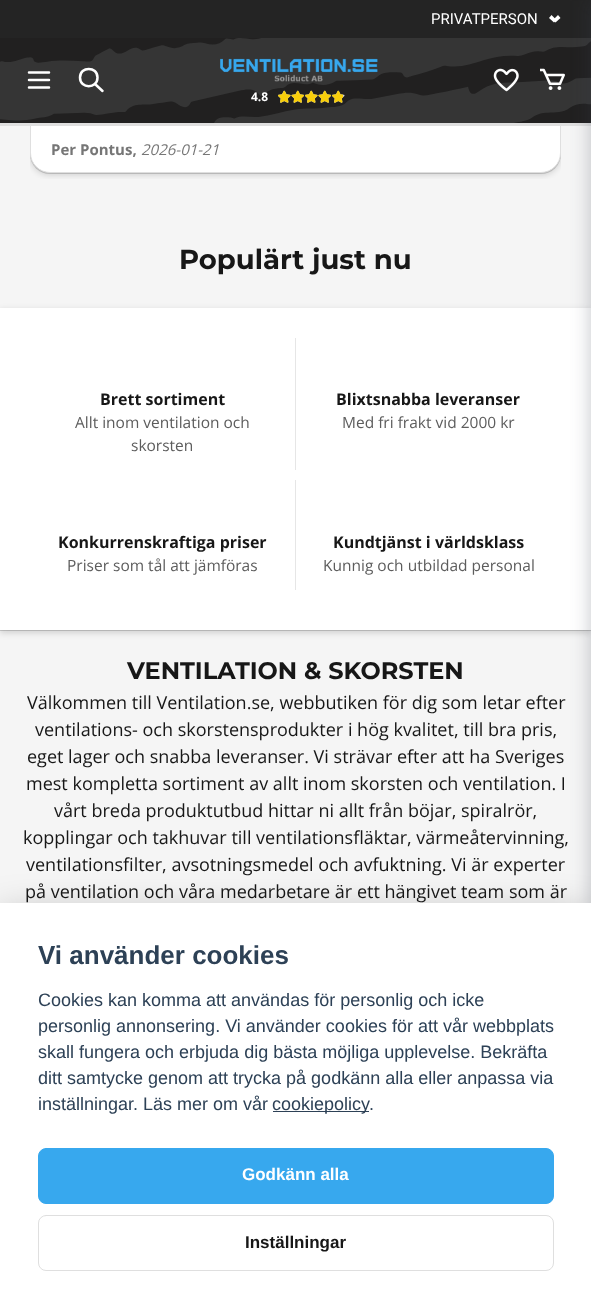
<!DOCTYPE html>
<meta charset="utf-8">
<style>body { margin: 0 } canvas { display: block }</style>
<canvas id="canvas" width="591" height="1308"></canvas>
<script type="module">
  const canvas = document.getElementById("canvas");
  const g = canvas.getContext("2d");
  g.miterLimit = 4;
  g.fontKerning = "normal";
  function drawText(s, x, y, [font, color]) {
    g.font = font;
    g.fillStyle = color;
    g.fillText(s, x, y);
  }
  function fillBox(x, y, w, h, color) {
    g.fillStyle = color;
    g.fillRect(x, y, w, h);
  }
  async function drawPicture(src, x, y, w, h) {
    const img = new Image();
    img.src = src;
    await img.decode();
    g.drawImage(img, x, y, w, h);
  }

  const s1 = ["15px Roboto", "#FFFFFF"];
  const s2 = ["bold 12px Open Sans", "#FFFFFF"];
  const s3 = ["bold 15px Open Sans", "#767676"];
  const s4 = ["italic 15px Open Sans", "#767676"];
  const s5 = ["bold 27.5px Montserrat", "#171717"];
  const s6 = ["bold 16px Open Sans", "#171717"];
  const s7 = ["15.5px Open Sans", "#5D5D5D"];
  const s8 = ["bold 24px Montserrat", "#171717"];
  const s9 = ["18px Open Sans", "#171717"];
  const s10 = ["bold 26px Liberation Sans", "#2D4156"];
  const s11 = ["18px Liberation Sans", "#2D4156"];
  const s12 = ["bold 17px Liberation Sans", "#FFFFFF"];
  const s13 = ["bold 17px Liberation Sans", "#171717"];

  fillBox(0, 0, 591, 1308, "#F5F5F5");
  g.save();
  g.beginPath();
  g.roundRect(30, 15, 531, 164, 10);
  g.clip();
  g.fillStyle = "rgba(0, 0, 0, 0.15)";
  g.filter = "blur(3px)";
  g.beginPath();
  g.roundRect(30, 19, 531, 156, 20);
  g.fill();
  g.filter = "none";
  g.restore();
  g.fillStyle = "rgba(0, 0, 0, 0.16)";
  g.filter = "blur(0.5px)";
  g.beginPath();
  g.roundRect(30, 18, 531, 156, 20);
  g.fill();
  g.filter = "none";
  g.fillStyle = "#FFFFFF";
  g.beginPath();
  g.roundRect(30.5, 16.5, 530, 156, 19.5);
  g.fill();
  g.strokeStyle = "#DFDFDF";
  g.stroke();
  await drawPicture("pic1.png", 0, 38, 591, 85);
  fillBox(0, 123, 591, 3, "#DFDFDF");
  fillBox(0, 0, 591, 38, "#242424");
  drawText("PRIVATPERSON", 431, 24, s1);
  g.beginPath();
  g.moveTo(553, 20);
  g.lineTo(558, 15);
  g.lineTo(560.5, 18);
  g.lineTo(555.5, 22.5);
  g.closePath();
  g.fill();
  g.beginPath();
  g.moveTo(549, 18);
  g.lineTo(551.5, 15);
  g.lineTo(556.5, 20);
  g.lineTo(554, 22.5);
  g.closePath();
  g.fill();
  g.beginPath();
  g.moveTo(29, 72.5);
  g.lineTo(49, 72.5);
  g.moveTo(29, 80);
  g.lineTo(49, 80);
  g.moveTo(29, 87.5);
  g.lineTo(49, 87.5);
  g.strokeStyle = "#FFFFFF";
  g.lineWidth = 2.5;
  g.lineCap = "round";
  g.lineJoin = "round";
  g.stroke();
  g.beginPath();
  g.moveTo(102.5, 91);
  g.lineTo(95, 84);
  g.moveTo(97.5, 77.5);
  g.bezierCurveTo(97.5, 89, 80, 89, 80, 77.5);
  g.bezierCurveTo(80, 66, 97.5, 66, 97.5, 77.5);
  g.closePath();
  g.stroke();
  await drawPicture("pic2.png", 493, 68, 26, 24);
  await drawPicture("pic3.png", 540, 68, 25, 22);
  await drawPicture("pic4.png", 220, 58, 158, 24);
  drawText("4.8", 251, 101, s2);
  await drawPicture("pic5.png", 278, 90, 67, 13);
  await drawPicture("pic6.png", 278, 90, 65, 13);
  g.fillStyle = "rgba(0, 0, 0, 0.15)";
  g.filter = "blur(3px)";
  g.beginPath();
  g.rect(0, 310, 591, 323);
  g.fill();
  g.filter = "none";
  g.fillStyle = "rgba(0, 0, 0, 0.16)";
  g.filter = "blur(0.5px)";
  g.beginPath();
  g.rect(0, 309, 591, 322);
  g.fill();
  g.filter = "none";
  fillBox(0, 308, 591, 322, "#FFFFFF");
  g.fillStyle = "rgba(60, 66, 87, 0.3)";
  g.filter = "blur(9.5px)";
  g.beginPath();
  g.rect(591, 1, 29, 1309);
  g.fill();
  g.filter = "none";
  drawText("Per Pontus,", 51, 155, s3);
  drawText("2026-01-21", 141, 155, s4);
  drawText("Populärt just nu", 179, 269, s5);
  fillBox(295, 338, 1, 132, "#E6E6E6");
  drawText("Brett sortiment", 100, 405, s6);
  drawText("Allt inom ventilation och", 75, 428, s7);
  drawText("skorsten", 131, 451, s7);
  drawText("Blixtsnabba leveranser", 336, 405, s6);
  drawText("Med fri frakt vid 2000 kr", 342, 428, s7);
  fillBox(295, 480, 1, 110, "#E6E6E6");
  drawText("Konkurrenskraftiga priser", 58, 548, s6);
  drawText("Priser som tål att jämföras", 67, 571, s7);
  drawText("Kundtjänst i världsklass", 333, 548, s6);
  drawText("Kunnig och utbildad personal", 323, 571, s7);
  drawText("VENTILATION & SKORSTEN", 127, 679, s8);
  drawText("Välkommen till Ventilation.se, webbutiken för dig som letar efter", 27, 709, s9);
  drawText("ventilations- och skorstensprodukter i hög kvalitet, till bra pris,", 35, 736, s9);
  drawText("eget lager och snabba leveranser. Vi strävar efter att ha Sveriges", 27, 763, s9);
  drawText("mest kompletta sortiment av allt inom skorsten och ventilation. I", 26, 790, s9);
  drawText("vårt breda produktutbud hittar ni allt från böjar, spiralrör,", 54, 817, s9);
  drawText("kopplingar och takhuvar till ventilationsfläktar, värmeåtervinning,", 23, 844, s9);
  drawText("ventilationsfilter, avsotningsmedel och avfuktning. Vi är experter", 26, 871, s9);
  drawText("på ventilation och våra medarbetare är ett hängivet team som är", 25, 898, s9);
  g.fillStyle = "rgba(2, 2, 3, 0.28)";
  g.filter = "blur(19px)";
  g.beginPath();
  g.rect(0, 915, 591, 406);
  g.fill();
  g.filter = "none";
  fillBox(0, 903, 591, 405, "#FFFFFF");
  drawText("Vi använder cookies", 38, 964, s10);
  drawText("Cookies kan komma att användas för personlig och icke", 38, 1006, s11);
  drawText("personlig annonsering. Vi använder cookies för att vår webbplats", 38, 1032, s11);
  drawText("skall fungera och erbjuda dig bästa möjliga upplevelse. Bekräfta", 38, 1058, s11);
  drawText("ditt samtycke genom att trycka på godkänn alla eller anpassa via", 38, 1084, s11);
  drawText("inställningar. Läs mer om vår", 38, 1110, s11);
  fillBox(273, 1111, 96, 1, "#2D4156");
  drawText("cookiepolicy", 272, 1110, s11);
  drawText(".", 369, 1110, s11);
  g.fillStyle = "#37A8EE";
  g.beginPath();
  g.roundRect(38.5, 1148.5, 515, 55, 7.5);
  g.fill();
  g.strokeStyle = "#37A8EE";
  g.lineWidth = 1;
  g.lineJoin = "miter";
  g.stroke();
  drawText("Godkänn alla", 242, 1180, s12);
  g.beginPath();
  g.roundRect(38.5, 1215.5, 515, 55, 7.5);
  g.strokeStyle = "#DFDFDF";
  g.stroke();
  drawText("Inställningar", 245, 1248, s13);
</script>
